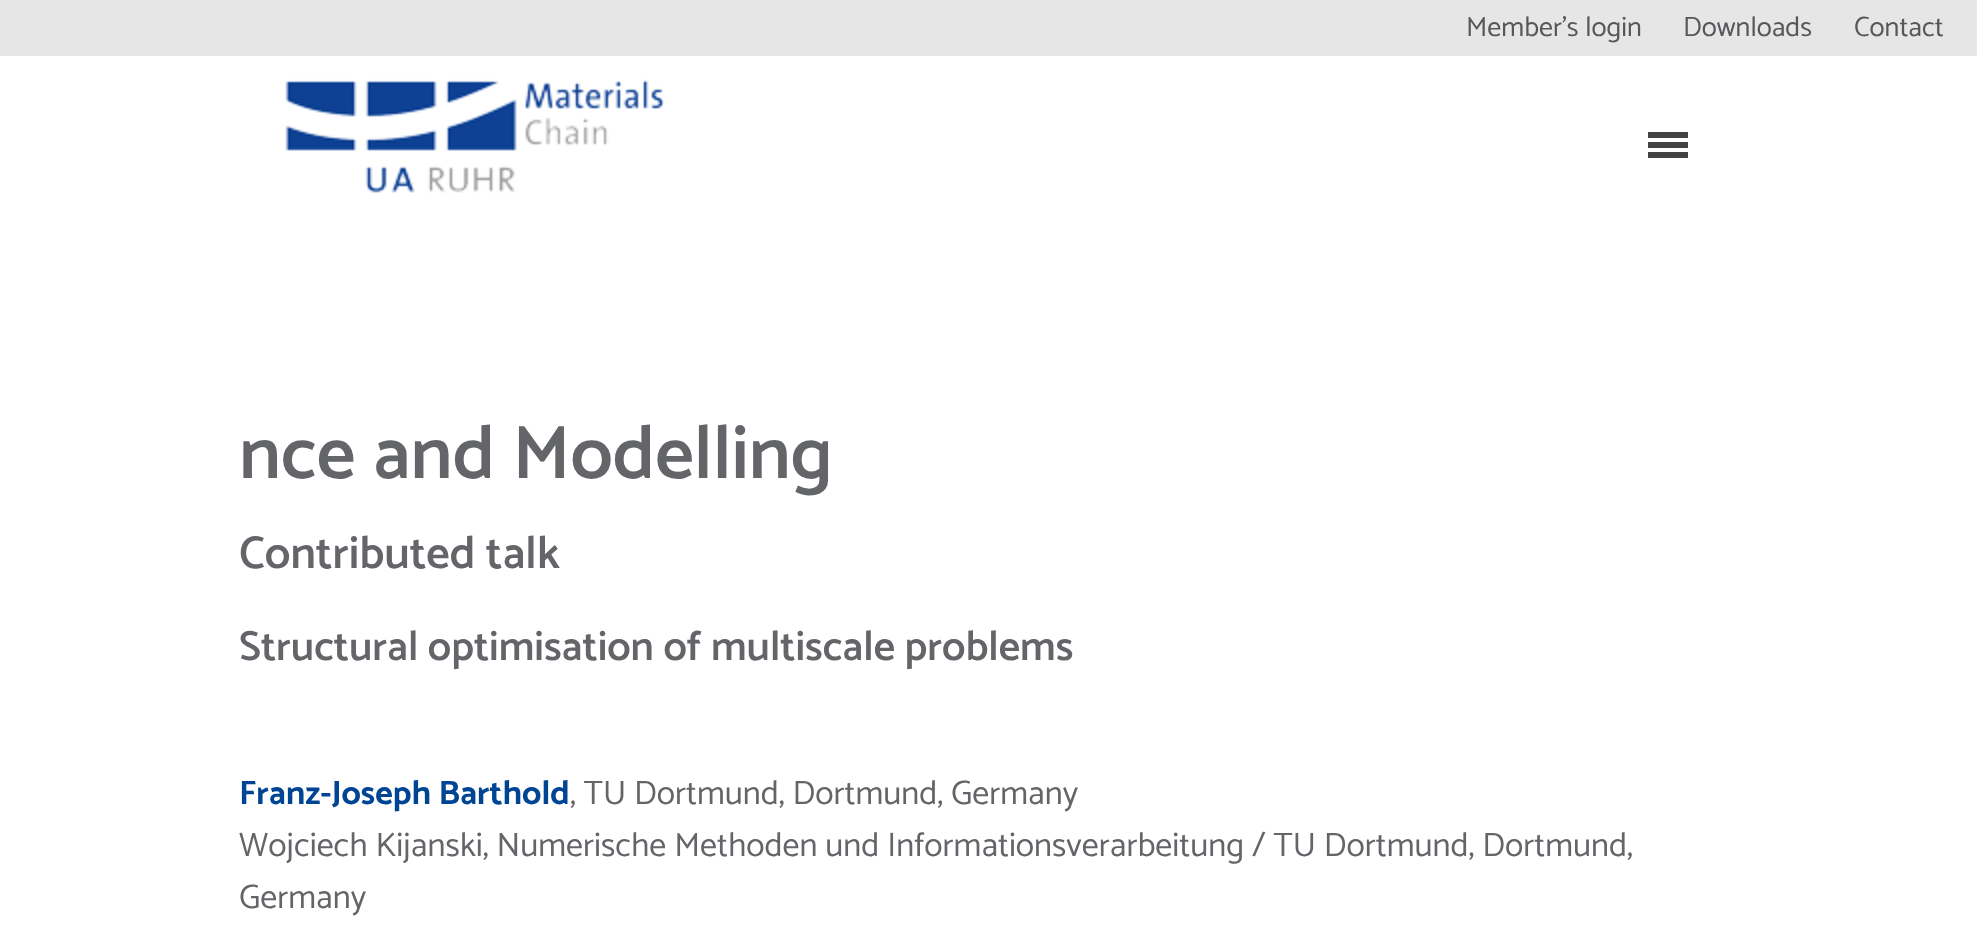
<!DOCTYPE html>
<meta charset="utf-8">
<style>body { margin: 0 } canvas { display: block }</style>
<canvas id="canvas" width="1977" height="929"></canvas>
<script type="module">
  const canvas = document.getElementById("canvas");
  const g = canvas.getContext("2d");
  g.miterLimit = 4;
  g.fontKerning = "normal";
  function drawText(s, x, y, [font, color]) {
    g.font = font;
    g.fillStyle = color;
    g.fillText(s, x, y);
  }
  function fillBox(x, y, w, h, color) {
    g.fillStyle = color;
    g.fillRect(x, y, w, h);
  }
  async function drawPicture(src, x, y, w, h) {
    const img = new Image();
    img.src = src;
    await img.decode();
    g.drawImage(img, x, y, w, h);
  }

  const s1 = ["28px Catamaran", "#56575A"];
  const s2 = ["600 76px Catamaran", "#646569"];
  const s3 = ["600 46px Catamaran", "#646569"];
  const s4 = ["600 42px Catamaran", "#646569"];
  const s5 = ["bold 34px Catamaran", "#004494"];
  const s6 = ["34px Catamaran", "#646569"];

  fillBox(0, 0, 1977, 929, "#FFFFFF");
  fillBox(0, 0, 1977, 56, "#E6E6E6");
  drawText("Member’s login", 1466, 36, s1);
  drawText("Downloads", 1683, 36, s1);
  drawText("Contact", 1854, 36, s1);
  await drawPicture("pic1.png", 285, 79, 380, 114);
  fillBox(1648, 132, 40, 6, "#424345");
  fillBox(1648, 142, 40, 6, "#424345");
  fillBox(1648, 152, 40, 6, "#424345");
  drawText("nce and Modelling", 239, 478, s2);
  drawText("Contributed talk", 239, 568, s3);
  drawText("Structural optimisation of multiscale problems", 239, 660, s4);
  drawText("Franz-Joseph Barthold", 239, 804, s5);
  drawText(", TU Dortmund, Dortmund, Germany", 570, 804, s6);
  drawText("Wojciech Kijanski, Numerische Methoden und Informationsverarbeitung / TU Dortmund, Dortmund,", 239, 856, s6);
  drawText("Germany", 239, 908, s6);
</script>
